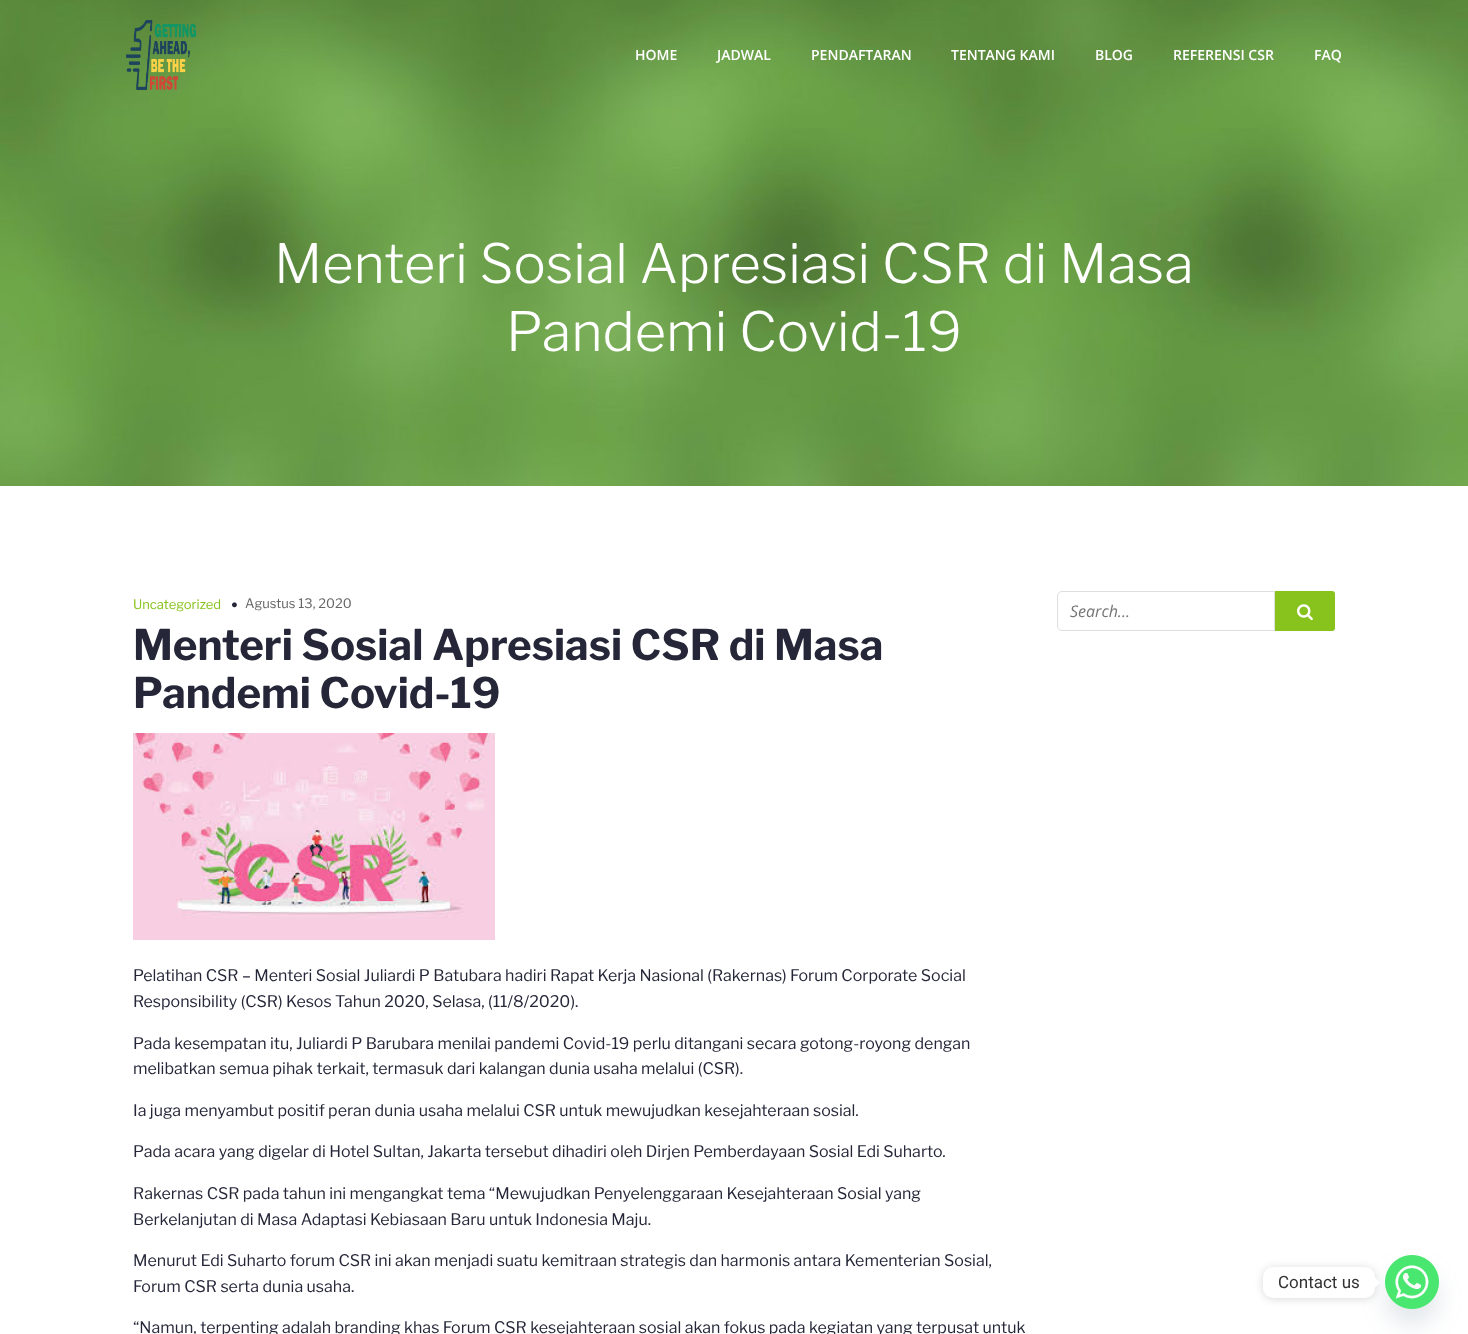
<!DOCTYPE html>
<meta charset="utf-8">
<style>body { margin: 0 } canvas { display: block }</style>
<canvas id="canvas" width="1468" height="1334"></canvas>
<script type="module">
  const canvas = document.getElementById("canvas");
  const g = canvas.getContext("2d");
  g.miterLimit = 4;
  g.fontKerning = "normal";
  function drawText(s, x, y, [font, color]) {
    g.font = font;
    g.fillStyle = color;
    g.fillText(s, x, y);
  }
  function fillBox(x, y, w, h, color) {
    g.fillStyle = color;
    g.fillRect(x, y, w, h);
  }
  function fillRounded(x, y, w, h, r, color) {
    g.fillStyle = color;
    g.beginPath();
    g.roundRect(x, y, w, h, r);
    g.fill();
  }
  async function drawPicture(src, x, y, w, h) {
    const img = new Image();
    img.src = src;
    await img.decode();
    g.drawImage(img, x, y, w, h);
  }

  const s1 = ["600 14px Open Sans", "#FFFFFF"];
  const s2 = ["300 54px Libre Franklin", "#FFFFFF"];
  const s3 = ["13px Libre Franklin", "#88C31D"];
  const s4 = ["13px Libre Franklin", "#656565"];
  const s5 = ["bold 42px Libre Franklin", "#252638"];
  const s6 = ["16px Libre Franklin", "#252638"];
  const s7 = ["italic 16px Open Sans", "#757575"];
  const s8 = ["17px Roboto", "#333333"];

  fillBox(0, 0, 1468, 1334, "#FFFFFF");
  await drawPicture("pic2.png", 0, 0, 1468, 486);
  await drawPicture("pic1.png", 126, 20, 70, 70);
  drawText("HOME", 635, 60, s1);
  drawText("JADWAL", 717, 60, s1);
  drawText("PENDAFTARAN", 811, 60, s1);
  drawText("TENTANG KAMI", 951, 60, s1);
  drawText("BLOG", 1095, 60, s1);
  drawText("REFERENSI CSR", 1173, 60, s1);
  drawText("FAQ", 1314, 60, s1);
  drawText("Menteri Sosial Apresiasi CSR di Masa", 274, 283, s2);
  drawText("Pandemi Covid-19", 506, 351, s2);
  drawText("Uncategorized", 133, 609, s3);
  await drawPicture("pic3.png", 232, 602, 5, 6);
  drawText("Agustus 13, 2020", 245, 608, s4);
  drawText("Menteri Sosial Apresiasi CSR di Masa", 133, 660, s5);
  drawText("Pandemi Covid-19", 133, 708, s5);
  await drawPicture("pic4.png", 133, 733, 362, 207);
  drawText("Pelatihan CSR – Menteri Sosial Juliardi P Batubara hadiri Rapat Kerja Nasional (Rakernas) Forum Corporate Social", 133, 981, s6);
  drawText("Responsibility (CSR) Kesos Tahun 2020, Selasa, (11/8/2020).", 133, 1007, s6);
  drawText("Pada kesempatan itu, Juliardi P Barubara menilai pandemi Covid-19 perlu ditangani secara gotong-royong dengan", 133, 1049, s6);
  drawText("melibatkan semua pihak terkait, termasuk dari kalangan dunia usaha melalui (CSR).", 133, 1074, s6);
  drawText("Ia juga menyambut positif peran dunia usaha melalui CSR untuk mewujudkan kesejahteraan sosial.", 133, 1116, s6);
  drawText("Pada acara yang digelar di Hotel Sultan, Jakarta tersebut dihadiri oleh Dirjen Pemberdayaan Sosial Edi Suharto.", 133, 1157, s6);
  drawText("Rakernas CSR pada tahun ini mengangkat tema “Mewujudkan Penyelenggaraan Kesejahteraan Sosial yang", 133, 1199, s6);
  drawText("Berkelanjutan di Masa Adaptasi Kebiasaan Baru untuk Indonesia Maju.", 133, 1225, s6);
  drawText("Menurut Edi Suharto forum CSR ini akan menjadi suatu kemitraan strategis dan harmonis antara Kementerian Sosial,", 133, 1266, s6);
  drawText("Forum CSR serta dunia usaha.", 133, 1292, s6);
  drawText("“Namun, terpenting adalah branding khas Forum CSR kesejahteraan sosial akan fokus pada kegiatan yang terpusat untuk", 133, 1333, s6);
  g.beginPath();
  g.roundRect(1057.5, 591.5, 217, 39, [4.5, 0, 0, 4.5]);
  g.strokeStyle = "#DEDEDE";
  g.stroke();
  drawText("Search...", 1070, 617, s7);
  g.fillStyle = "#88C31D";
  g.beginPath();
  g.roundRect(1275, 591, 60, 40, [0, 3, 3, 0]);
  g.fill();
  await drawPicture("pic5.png", 1297, 604, 16, 17);
  g.fillStyle = "rgba(73, 104, 126, 0.16)";
  g.filter = "blur(12px)";
  g.beginPath();
  g.roundRect(1385, 1271, 54, 54, 27);
  g.fill();
  g.filter = "none";
  await drawPicture("pic6.png", 1385, 1255, 54, 54);
  g.fillStyle = "rgba(0, 0, 0, 0.15)";
  g.filter = "blur(4px)";
  g.beginPath();
  g.roundRect(1263, 1268, 112, 31, 10);
  g.fill();
  g.filter = "none";
  fillRounded(1263, 1267, 112, 31, 10, "#FFFFFF");
  drawText("Contact us", 1278, 1288, s8);
  g.fillStyle = "#FFFFFF";
  g.beginPath();
  g.moveTo(1375, 1287.5);
  g.lineTo(1375, 1277.5);
  g.lineTo(1380, 1282.5);
  g.closePath();
  g.fill();
</script>
